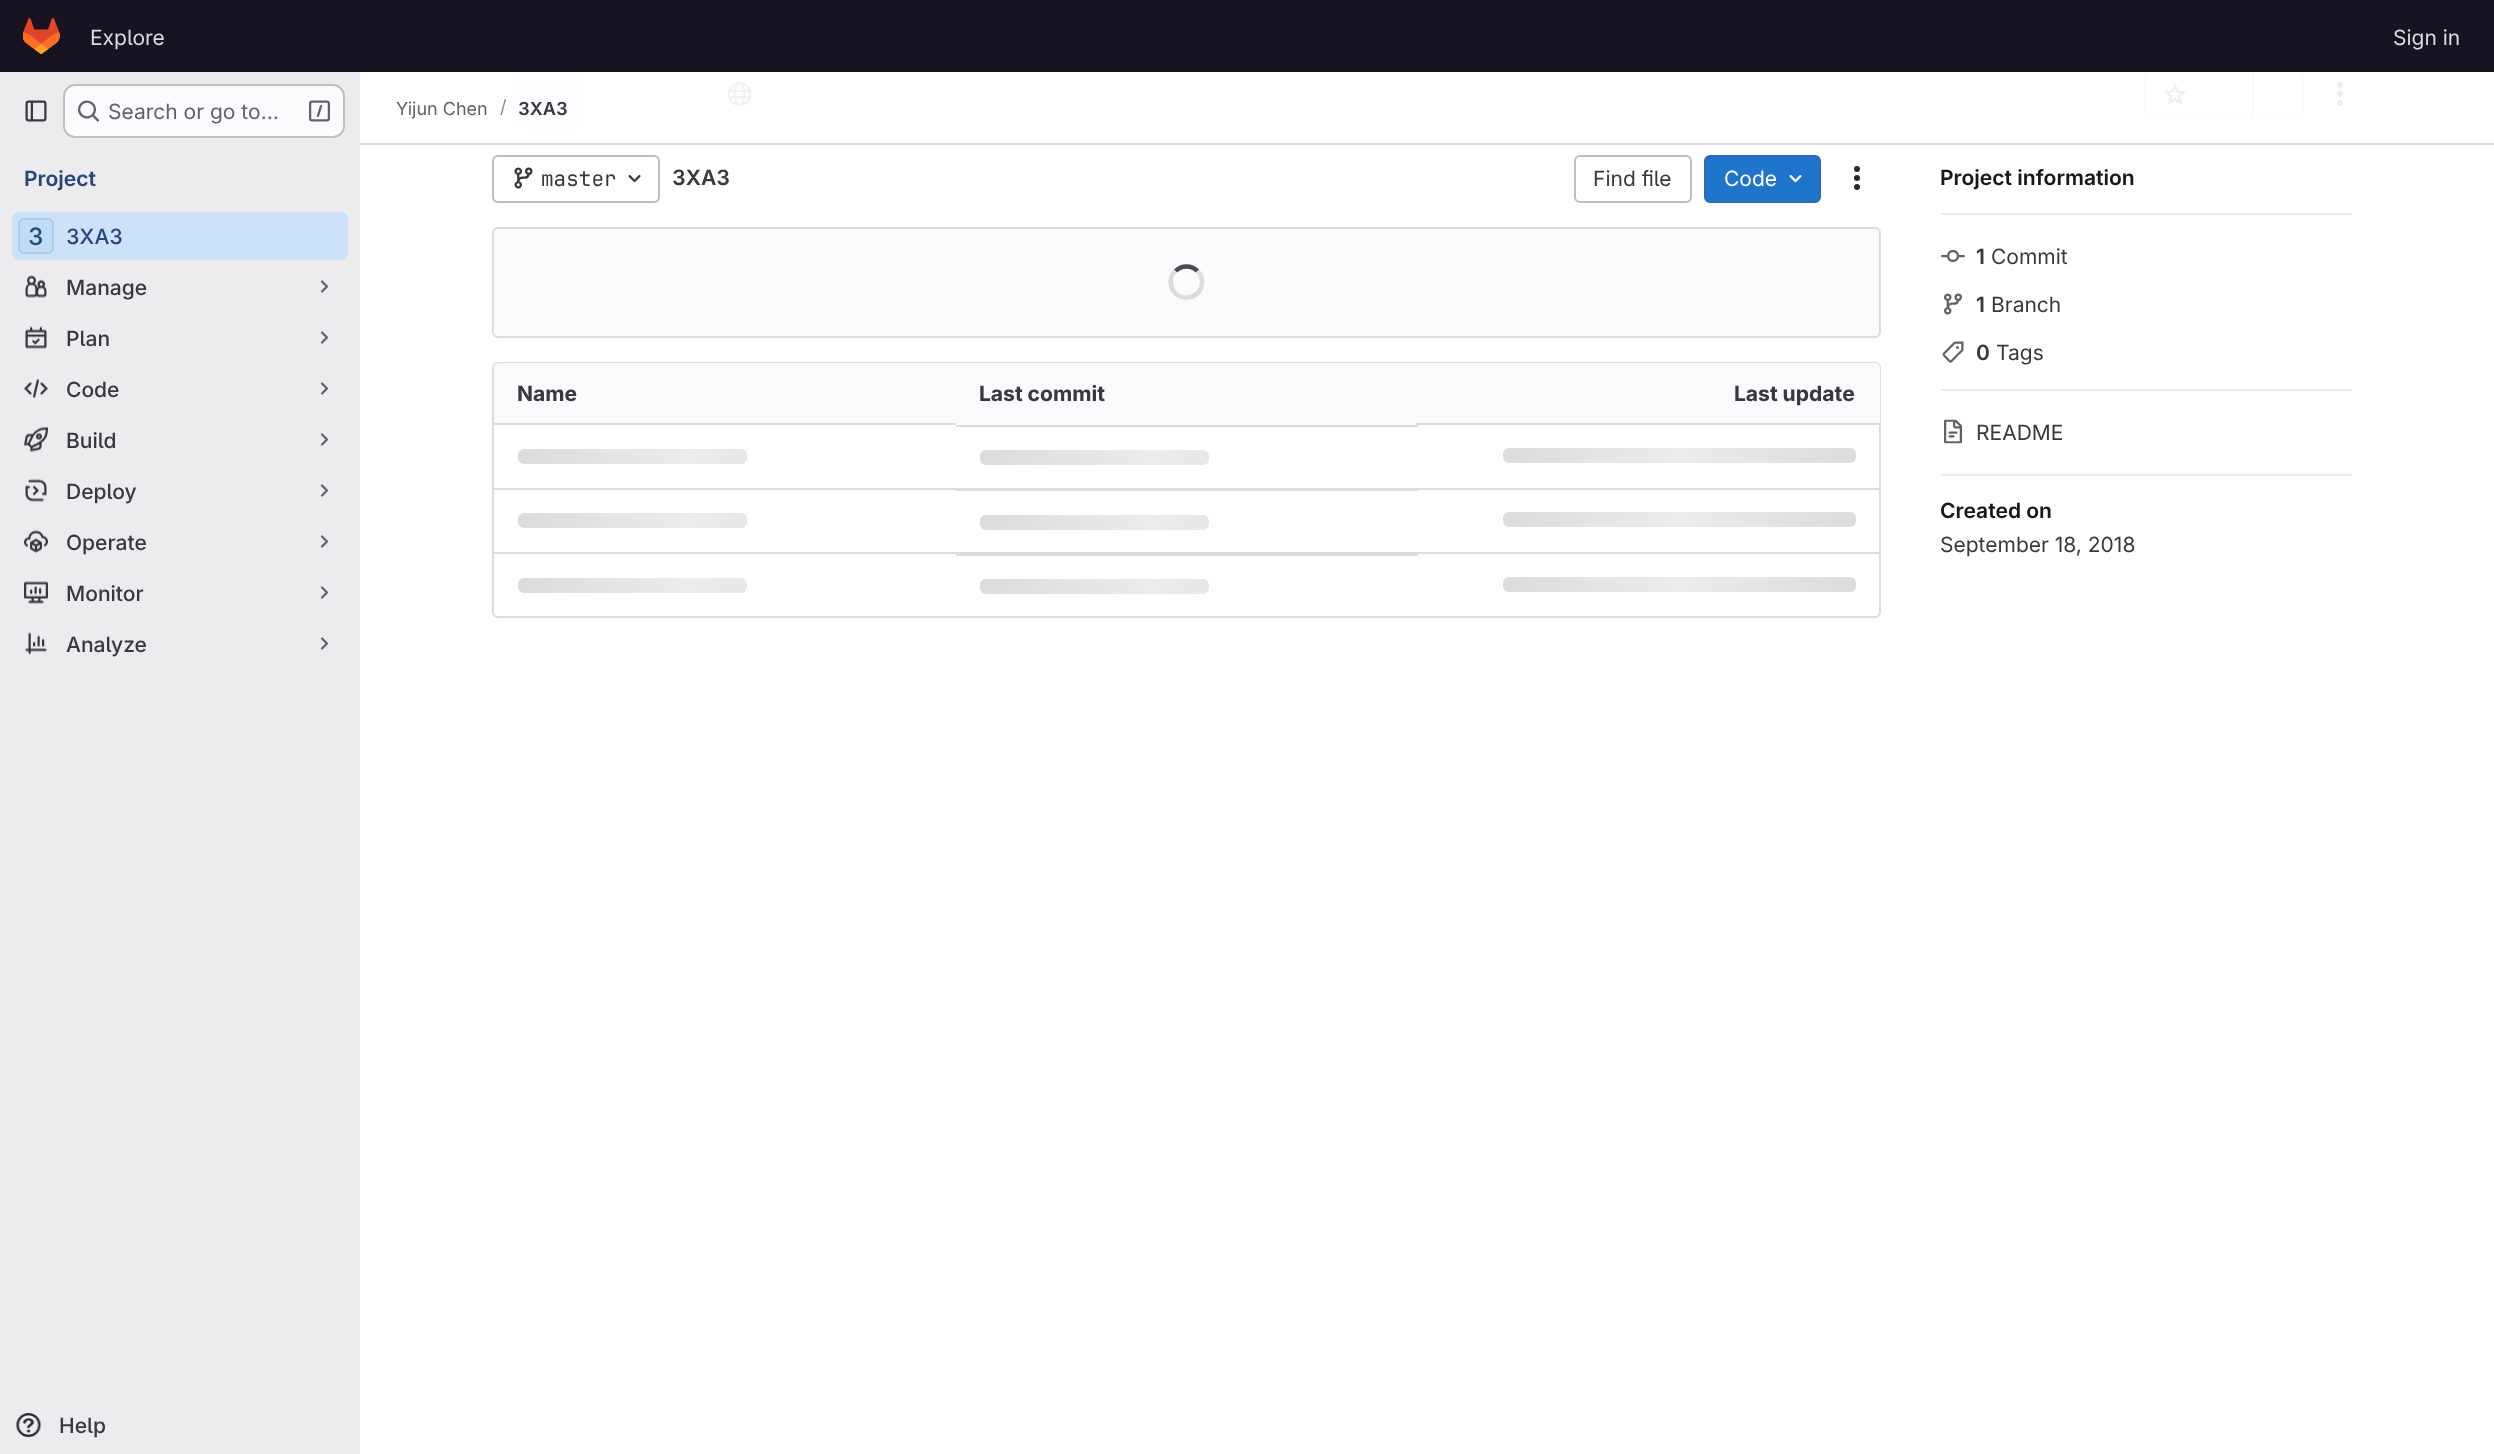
<!DOCTYPE html>
<meta charset="utf-8">
<style>body { margin: 0 } canvas { display: block }</style>
<canvas id="canvas" width="2494" height="1454"></canvas>
<script type="module">
  const canvas = document.getElementById("canvas");
  const g = canvas.getContext("2d");
  g.miterLimit = 4;
  g.fontKerning = "normal";
  function drawText(s, x, y, [font, color]) {
    g.font = font;
    g.fillStyle = color;
    g.fillText(s, x, y);
  }
  function fillBox(x, y, w, h, color) {
    g.fillStyle = color;
    g.fillRect(x, y, w, h);
  }
  function fillRounded(x, y, w, h, r, color) {
    g.fillStyle = color;
    g.beginPath();
    g.roundRect(x, y, w, h, r);
    g.fill();
  }
  async function drawPicture(src, x, y, w, h) {
    const img = new Image();
    img.src = src;
    await img.decode();
    g.drawImage(img, x, y, w, h);
  }
  let gradient;

  const s1 = ["21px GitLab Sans", "#DCDCDE"];
  const s2 = ["21px GitLab Sans", "#626168"];
  const s3 = ["600 21px GitLab Sans", "#284779"];
  const s4 = ["500 24px 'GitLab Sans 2'", "#284779"];
  const s5 = ["500 21px GitLab Sans", "#284779"];
  const s6 = ["500 21px GitLab Sans", "#3A383F"];
  const s7 = ["18px GitLab Sans", "#626168"];
  const s8 = ["18px GitLab Sans", "#89888D"];
  const s9 = ["600 18px GitLab Sans", "#3A383F"];
  const s10 = ["21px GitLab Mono", "#3A383F"];
  const s11 = ["600 21px GitLab Sans", "#3A383F"];
  const s12 = ["21px GitLab Sans", "#3A383F"];
  const s13 = ["21px GitLab Sans", "#FFFFFF"];
  const s14 = ["bold 21px GitLab Sans", "#3A383F"];
  const s15 = ["600 21px GitLab Sans", "#18171D"];

  fillBox(0, 0, 2494, 1454, "#FFFFFF");
  fillRounded(510, 59, 72, 72, 6, "#E7F2FC");
  g.beginPath();
  g.roundRect(511, 60, 70, 70, 5);
  g.strokeStyle = "rgba(5, 5, 6, 0.08)";
  g.lineWidth = 2;
  g.stroke();
  g.fillStyle = "#BFBFC3";
  g.beginPath();
  g.moveTo(2150, 70);
  g.lineTo(2252, 70);
  g.lineTo(2252, 118);
  g.lineTo(2150, 118);
  g.bezierCurveTo(2146, 118, 2144, 116, 2144, 112);
  g.lineTo(2144, 76);
  g.bezierCurveTo(2144, 73, 2146, 70, 2150, 70);
  g.closePath();
  g.moveTo(2150, 72);
  g.lineTo(2252, 72);
  g.lineTo(2252, 117);
  g.lineTo(2150, 117);
  g.bezierCurveTo(2147, 117, 2145, 115, 2145, 112);
  g.lineTo(2145, 76);
  g.bezierCurveTo(2145, 74, 2147, 72, 2150, 72);
  g.closePath();
  g.fill("evenodd");
  g.beginPath();
  g.moveTo(2253, 70);
  g.lineTo(2298, 70);
  g.bezierCurveTo(2301, 70, 2304, 73, 2304, 76);
  g.lineTo(2304, 112);
  g.bezierCurveTo(2304, 116, 2301, 118, 2298, 118);
  g.lineTo(2253, 118);
  g.closePath();
  g.moveTo(2253, 72);
  g.lineTo(2298, 72);
  g.bezierCurveTo(2300, 72, 2302, 74, 2302, 76);
  g.lineTo(2302, 112);
  g.bezierCurveTo(2302, 115, 2300, 117, 2298, 117);
  g.lineTo(2253, 117);
  g.closePath();
  g.fill("evenodd");
  fillBox(2252, 71, 2, 48, "#BFBFC3");
  fillBox(0, 0, 2494, 72, "#171321");
  await drawPicture("pic1.png", 23, 18, 37, 36);
  drawText("Explore", 90, 45, s1);
  drawText("Sign in", 2393, 45, s1);
  fillBox(0, 72, 360, 1382, "#ECECEF");
  await drawPicture("pic2.png", 25, 100, 22, 22);
  fillRounded(63, 84, 282, 54, 12, "#FBFAFD");
  g.beginPath();
  g.roundRect(64, 85, 280, 52, 11);
  g.strokeStyle = "rgba(5, 5, 6, 0.24)";
  g.stroke();
  await drawPicture("pic3.png", 78, 100, 21, 22);
  drawText("Search or go to…", 108, 119, s2);
  await drawPicture("pic4.png", 309, 100, 21, 22);
  drawText("Project", 24, 186, s3);
  fillRounded(12, 212, 336, 48, 6, "#CBE2F9");
  fillRounded(18, 218, 36, 36, 6, "#C0DCF7");
  g.beginPath();
  g.roundRect(19, 219, 34, 34, 5);
  g.strokeStyle = "#B1CBE4";
  g.stroke();
  drawText("3", 28, 245, s4);
  drawText("3XA3", 66, 244, s5);
  await drawPicture("pic5.png", 25, 275, 22, 23);
  drawText("Manage", 66, 295, s6);
  g.beginPath();
  g.moveTo(322, 281.5);
  g.lineTo(327, 286.5);
  g.lineTo(322, 291.5);
  g.strokeStyle = "#626168";
  g.lineWidth = 2.2;
  g.lineCap = "round";
  g.lineJoin = "round";
  g.stroke();
  await drawPicture("pic6.png", 25, 326, 22, 23);
  drawText("Plan", 66, 346, s6);
  g.beginPath();
  g.moveTo(322, 332.5);
  g.lineTo(327, 337.5);
  g.lineTo(322, 342.5);
  g.stroke();
  await drawPicture("pic7.png", 24, 379, 24, 19);
  drawText("Code", 66, 397, s6);
  g.beginPath();
  g.moveTo(322, 383.5);
  g.lineTo(327, 388.5);
  g.lineTo(322, 393.5);
  g.stroke();
  await drawPicture("pic8.png", 24, 427, 24, 25);
  drawText("Build", 66, 448, s6);
  g.beginPath();
  g.moveTo(322, 434.5);
  g.lineTo(327, 439.5);
  g.lineTo(322, 444.5);
  g.stroke();
  await drawPicture("pic9.png", 25, 479, 22, 23);
  drawText("Deploy", 66, 499, s6);
  g.beginPath();
  g.moveTo(322, 485.5);
  g.lineTo(327, 490.5);
  g.lineTo(322, 495.5);
  g.stroke();
  await drawPicture("pic10.png", 24, 530, 24, 23);
  drawText("Operate", 66, 550, s6);
  g.beginPath();
  g.moveTo(322, 536.5);
  g.lineTo(327, 541.5);
  g.lineTo(322, 546.5);
  g.stroke();
  await drawPicture("pic11.png", 24, 581, 24, 23);
  drawText("Monitor", 66, 601, s6);
  g.beginPath();
  g.moveTo(322, 587.5);
  g.lineTo(327, 592.5);
  g.lineTo(322, 597.5);
  g.stroke();
  await drawPicture("pic12.png", 25, 632, 22, 23);
  drawText("Analyze", 66, 652, s6);
  g.beginPath();
  g.moveTo(322, 638.5);
  g.lineTo(327, 643.5);
  g.lineTo(322, 648.5);
  g.stroke();
  await drawPicture("pic13.png", 16, 1413, 25, 24);
  drawText("Help", 59, 1433, s6);
  await drawPicture("pic14.png", 727, 82, 25, 24);
  await drawPicture("pic15.png", 2164, 84, 22, 20);
  await drawPicture("pic16.png", 2337, 82, 6, 24);
  fillBox(510, 72, 1833, 59, "rgba(255, 255, 255, 0.92)");
  fillBox(360, 143, 2134, 2, "#DCDCDE");
  drawText("Yijun Chen", 396, 115, s7);
  drawText("/", 500, 113, s8);
  drawText("3XA3", 518, 115, s9);
  g.beginPath();
  g.roundRect(493, 156, 166, 46, 5);
  g.strokeStyle = "#BFBFC3";
  g.lineWidth = 2;
  g.lineJoin = "miter";
  g.stroke();
  await drawPicture("pic17.png", 514, 167, 19, 22);
  drawText("master", 541, 186, s10);
  await drawPicture("pic18.png", 628, 175, 13, 8);
  drawText("3XA3", 672, 185, s11);
  g.beginPath();
  g.roundRect(1575, 156, 116, 46, 5);
  g.stroke();
  drawText("Find file", 1593, 186, s12);
  g.fillStyle = "#1F75CB";
  g.beginPath();
  g.roundRect(1705, 156, 115, 46, 5);
  g.fill();
  g.strokeStyle = "#2F68B4";
  g.stroke();
  drawText("Code", 1724, 186, s13);
  await drawPicture("pic19.png", 1789, 175, 13, 8);
  await drawPicture("pic16.png", 1854, 166, 6, 24);
  g.fillStyle = "#FBFAFD";
  g.beginPath();
  g.roundRect(493, 228, 1387, 109, 5);
  g.fill();
  g.strokeStyle = "#DCDCDE";
  g.stroke();
  g.beginPath();
  g.moveTo(1175.5, 271);
  g.bezierCurveTo(1181.5, 265, 1191.5, 265, 1197.5, 271);
  g.strokeStyle = "#4C4B51";
  g.lineWidth = 4.5;
  g.lineCap = "butt";
  g.stroke();
  g.beginPath();
  g.moveTo(1197.5, 271);
  g.bezierCurveTo(1200.5, 274, 1202, 278, 1202, 282);
  g.bezierCurveTo(1202, 301, 1174.5, 303.5, 1171, 285);
  g.bezierCurveTo(1170, 280, 1171.5, 274.5, 1175.5, 271);
  g.strokeStyle = "#DCDCDE";
  g.stroke();
  g.beginPath();
  g.roundRect(493, 363, 1387, 254, 5);
  g.lineWidth = 2;
  g.stroke();
  g.beginPath();
  g.roundRect(494, 363, 462, 62, [5, 0, 0, 0]);
  g.fill();
  drawText("Name", 517, 401, s14);
  fillBox(956, 363, 462, 62, "#FBFAFD");
  drawText("Last commit", 979, 401, s14);
  g.fillStyle = "#FBFAFD";
  g.beginPath();
  g.roundRect(1418, 363, 462, 62, [0, 5, 0, 0]);
  g.fill();
  drawText("Last update", 1734, 401, s14);
  fillBox(494, 488, 1386, 2, "#DCDCDE");
  fillBox(494, 423, 462, 2, "#DCDCDE");
  gradient = g.createLinearGradient(518, 449, 870, 449);
  gradient.addColorStop(0, "#DCDCDE");
  gradient.addColorStop(0.5, "#ECECEF");
  gradient.addColorStop(1, "#DCDCDE");
  g.fillStyle = gradient;
  g.beginPath();
  g.roundRect(518, 449, 229, 15, 6);
  g.fill();
  fillBox(956, 425, 462, 2, "#DCDCDE");
  gradient = g.createLinearGradient(980, 450, 1332, 450);
  gradient.addColorStop(0, "#DCDCDE");
  gradient.addColorStop(0.5, "#ECECEF");
  gradient.addColorStop(1, "#DCDCDE");
  g.fillStyle = gradient;
  g.beginPath();
  g.roundRect(980, 450, 229, 15, 6);
  g.fill();
  fillBox(1416, 423, 464, 2, "#DCDCDE");
  gradient = g.createLinearGradient(1503, 448, 1856, 448);
  gradient.addColorStop(0, "#DCDCDE");
  gradient.addColorStop(0.5, "#ECECEF");
  gradient.addColorStop(1, "#DCDCDE");
  g.fillStyle = gradient;
  g.beginPath();
  g.roundRect(1503, 448, 353, 15, 6);
  g.fill();
  fillBox(494, 552, 1386, 2, "#DCDCDE");
  gradient = g.createLinearGradient(518, 513, 870, 513);
  gradient.addColorStop(0, "#DCDCDE");
  gradient.addColorStop(0.5, "#ECECEF");
  gradient.addColorStop(1, "#DCDCDE");
  g.fillStyle = gradient;
  g.beginPath();
  g.roundRect(518, 513, 229, 15, 6);
  g.fill();
  fillBox(956, 490, 462, 1, "#DCDCDE");
  gradient = g.createLinearGradient(980, 515, 1332, 515);
  gradient.addColorStop(0, "#DCDCDE");
  gradient.addColorStop(0.5, "#ECECEF");
  gradient.addColorStop(1, "#DCDCDE");
  g.fillStyle = gradient;
  g.beginPath();
  g.roundRect(980, 515, 229, 15, 6);
  g.fill();
  gradient = g.createLinearGradient(1503, 512, 1856, 512);
  gradient.addColorStop(0, "#DCDCDE");
  gradient.addColorStop(0.5, "#ECECEF");
  gradient.addColorStop(1, "#DCDCDE");
  g.fillStyle = gradient;
  g.beginPath();
  g.roundRect(1503, 512, 353, 15, 6);
  g.fill();
  gradient = g.createLinearGradient(518, 578, 870, 578);
  gradient.addColorStop(0, "#DCDCDE");
  gradient.addColorStop(0.5, "#ECECEF");
  gradient.addColorStop(1, "#DCDCDE");
  g.fillStyle = gradient;
  g.beginPath();
  g.roundRect(518, 578, 229, 15, 6);
  g.fill();
  fillBox(956, 554, 462, 2, "#DCDCDE");
  gradient = g.createLinearGradient(980, 579, 1332, 579);
  gradient.addColorStop(0, "#DCDCDE");
  gradient.addColorStop(0.5, "#ECECEF");
  gradient.addColorStop(1, "#DCDCDE");
  g.fillStyle = gradient;
  g.beginPath();
  g.roundRect(980, 579, 229, 15, 6);
  g.fill();
  gradient = g.createLinearGradient(1503, 577, 1856, 577);
  gradient.addColorStop(0, "#DCDCDE");
  gradient.addColorStop(0.5, "#ECECEF");
  gradient.addColorStop(1, "#DCDCDE");
  g.fillStyle = gradient;
  g.beginPath();
  g.roundRect(1503, 577, 353, 15, 6);
  g.fill();
  fillBox(1941, 213, 411, 2, "#ECECEF");
  drawText("Project information", 1940, 185, s15);
  fillBox(1941, 389, 411, 2, "#ECECEF");
  await drawPicture("pic20.png", 1941, 250, 24, 12);
  drawText("1", 1976, 264, s11);
  drawText("Commit", 1991, 264, s12);
  await drawPicture("pic21.png", 1944, 293, 18, 22);
  drawText("1", 1976, 312, s11);
  drawText("Branch", 1991, 312, s12);
  await drawPicture("pic22.png", 1942, 341, 22, 22);
  drawText("0", 1976, 360, s11);
  drawText("Tags", 1996, 360, s12);
  fillBox(1941, 474, 411, 2, "#ECECEF");
  await drawPicture("pic23.png", 1944, 419, 18, 25);
  drawText("README", 1976, 440, s12);
  drawText("Created on", 1940, 518, s15);
  drawText("September 18, 2018", 1940, 552, s12);
</script>
